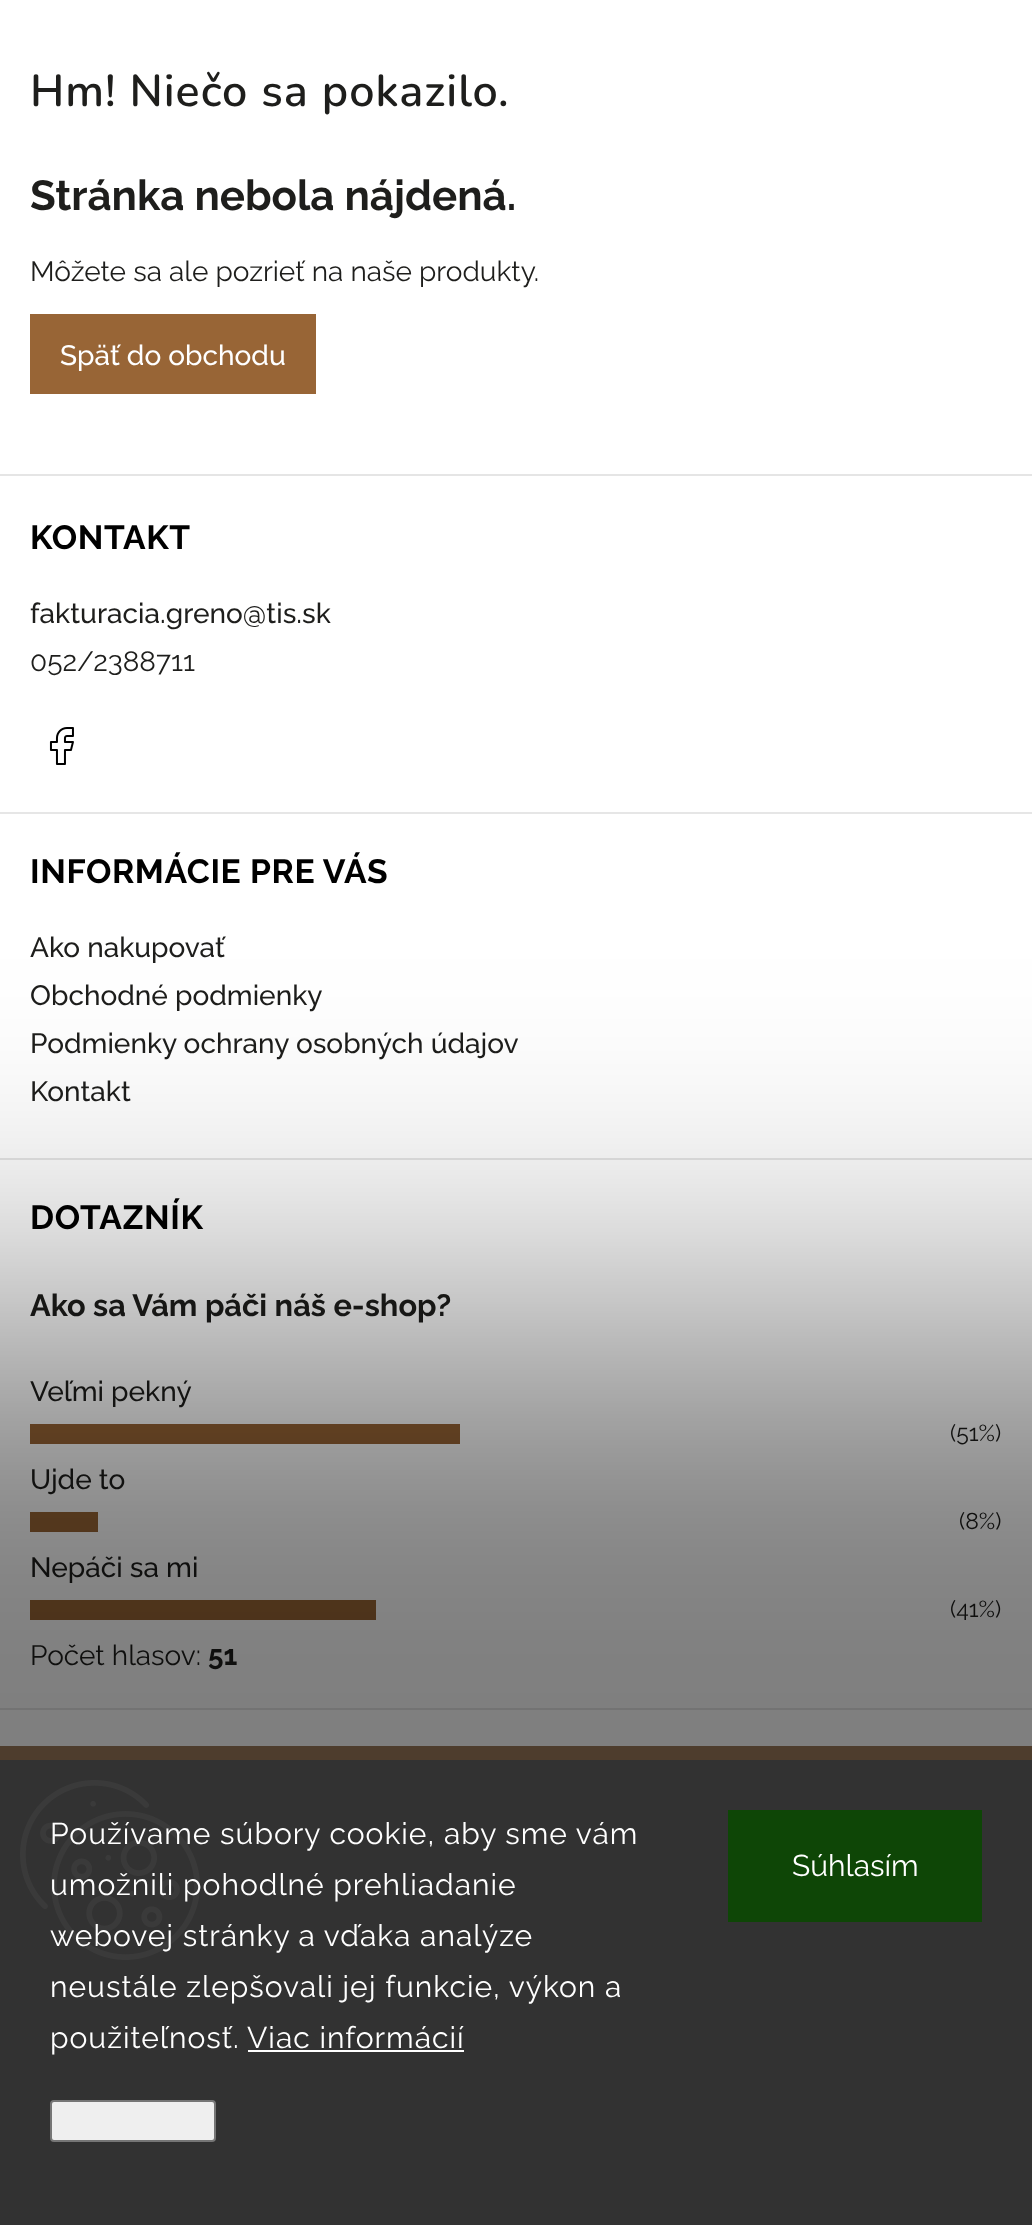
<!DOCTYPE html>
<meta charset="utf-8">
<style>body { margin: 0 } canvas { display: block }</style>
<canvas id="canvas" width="1032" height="2225"></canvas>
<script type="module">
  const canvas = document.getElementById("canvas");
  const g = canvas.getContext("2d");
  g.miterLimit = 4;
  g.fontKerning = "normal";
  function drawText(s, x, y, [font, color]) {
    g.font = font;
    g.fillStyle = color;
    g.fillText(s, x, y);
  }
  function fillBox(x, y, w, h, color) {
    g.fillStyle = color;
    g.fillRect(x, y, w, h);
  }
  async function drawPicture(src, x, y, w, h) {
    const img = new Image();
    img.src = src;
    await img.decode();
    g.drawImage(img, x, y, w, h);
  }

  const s1 = ["600 44.75px Nunito", "#1E1E1C"];
  const s2 = ["bold 42px Raleway", "#1E1E1C"];
  const s3 = ["28px Raleway", "#1E1E1C"];
  const s4 = ["500 28px Raleway", "#FFFFFF"];
  const s5 = ["bold 33.6px Raleway", "#000000"];
  const s6 = ["500 28px Raleway", "#1E1E1C"];
  const s7 = ["bold 30.75px Raleway", "#1E1E1C"];
  const s8 = ["23px Raleway", "#1E1E1C"];
  const s9 = ["bold 28px Raleway", "#1E1E1C"];
  const s10 = ["30px Raleway", "#FFFFFF"];

  fillBox(0, 0, 1032, 2225, "#FFFFFF");
  g.letterSpacing = "1px";
  drawText("Hm! Niečo sa pokazilo.", 30, 106, s1);
  g.letterSpacing = "0px";
  drawText("Stránka nebola nájdená.", 30, 210, s2);
  drawText("Môžete sa ale pozrieť na naše produkty.", 30, 281, s3);
  fillBox(30, 314, 286, 80, "#986536");
  drawText("Späť do obchodu", 60, 365, s4);
  fillBox(0, 474, 1032, 2, "#E5E5E5");
  fillBox(0, 812, 1032, 2, "#E6E6E6");
  g.letterSpacing = "0.6px";
  drawText("KONTAKT", 30, 549, s5);
  g.letterSpacing = "0px";
  drawText("fakturacia.greno@tis.sk", 30, 623, s6);
  drawText("052/2388711", 30, 671, s3);
  await drawPicture("pic1.png", 49, 727, 25, 38);
  fillBox(0, 1158, 1032, 2, "#E6E6E6");
  g.letterSpacing = "0.6px";
  drawText("INFORMÁCIE PRE VÁS", 30, 883, s5);
  g.letterSpacing = "0px";
  drawText("Ako nakupovať", 30, 957, s6);
  drawText("Obchodné podmienky", 30, 1005, s6);
  drawText("Podmienky ochrany osobných údajov", 30, 1053, s6);
  drawText("Kontakt", 30, 1101, s6);
  fillBox(0, 1708, 1032, 2, "#E6E6E6");
  g.letterSpacing = "0.6px";
  drawText("DOTAZNÍK", 30, 1229, s5);
  g.letterSpacing = "0px";
  drawText("Ako sa Vám páči náš e-shop?", 30, 1316, s7);
  drawText("Veľmi pekný", 30, 1401, s6);
  fillBox(30, 1424, 430, 20, "#986536");
  drawText("(51%)", 950, 1441, s8);
  drawText("Ujde to", 30, 1489, s6);
  fillBox(30, 1512, 68, 20, "#986536");
  drawText("(8%)", 959, 1529, s8);
  drawText("Nepáči sa mi", 30, 1577, s6);
  fillBox(30, 1600, 346, 20, "#986536");
  drawText("(41%)", 950, 1617, s8);
  drawText("Počet hlasov:", 30, 1665, s3);
  drawText("51", 208, 1665, s9);
  fillBox(0, 1746, 1032, 14, "#9C7A5A");
  g.fillStyle = "rgba(0, 0, 0, 0.5)";
  g.filter = "blur(160px)";
  g.beginPath();
  g.rect(-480, 1324, 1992, 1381);
  g.fill();
  g.filter = "none";
  fillBox(0, 1760, 1032, 465, "#323232");
  await drawPicture("pic2.png", 20, 1780, 180, 180);
  g.letterSpacing = "1px";
  drawText("Používame súbory cookie, aby sme vám", 50, 1844, s10);
  drawText("umožnili pohodlné prehliadanie", 50, 1895, s10);
  drawText("webovej stránky a vďaka analýze", 50, 1946, s10);
  drawText("neustále zlepšovali jej funkcie, výkon a", 50, 1997, s10);
  drawText("použiteľnosť.", 50, 2048, s10);
  drawText("Viac informácií", 247, 2048, s10);
  fillBox(248, 2050, 216, 2, "#FFFFFF");
  g.fillStyle = "#EFEFEF";
  g.beginPath();
  g.roundRect(51, 2101, 164, 40, 3);
  g.fill();
  g.strokeStyle = "#767676";
  g.lineWidth = 2;
  g.stroke();
  fillBox(728, 1810, 254, 112, "#0E4606");
  g.letterSpacing = "0px";
  drawText("Súhlasím", 792, 1876, s10);
</script>
